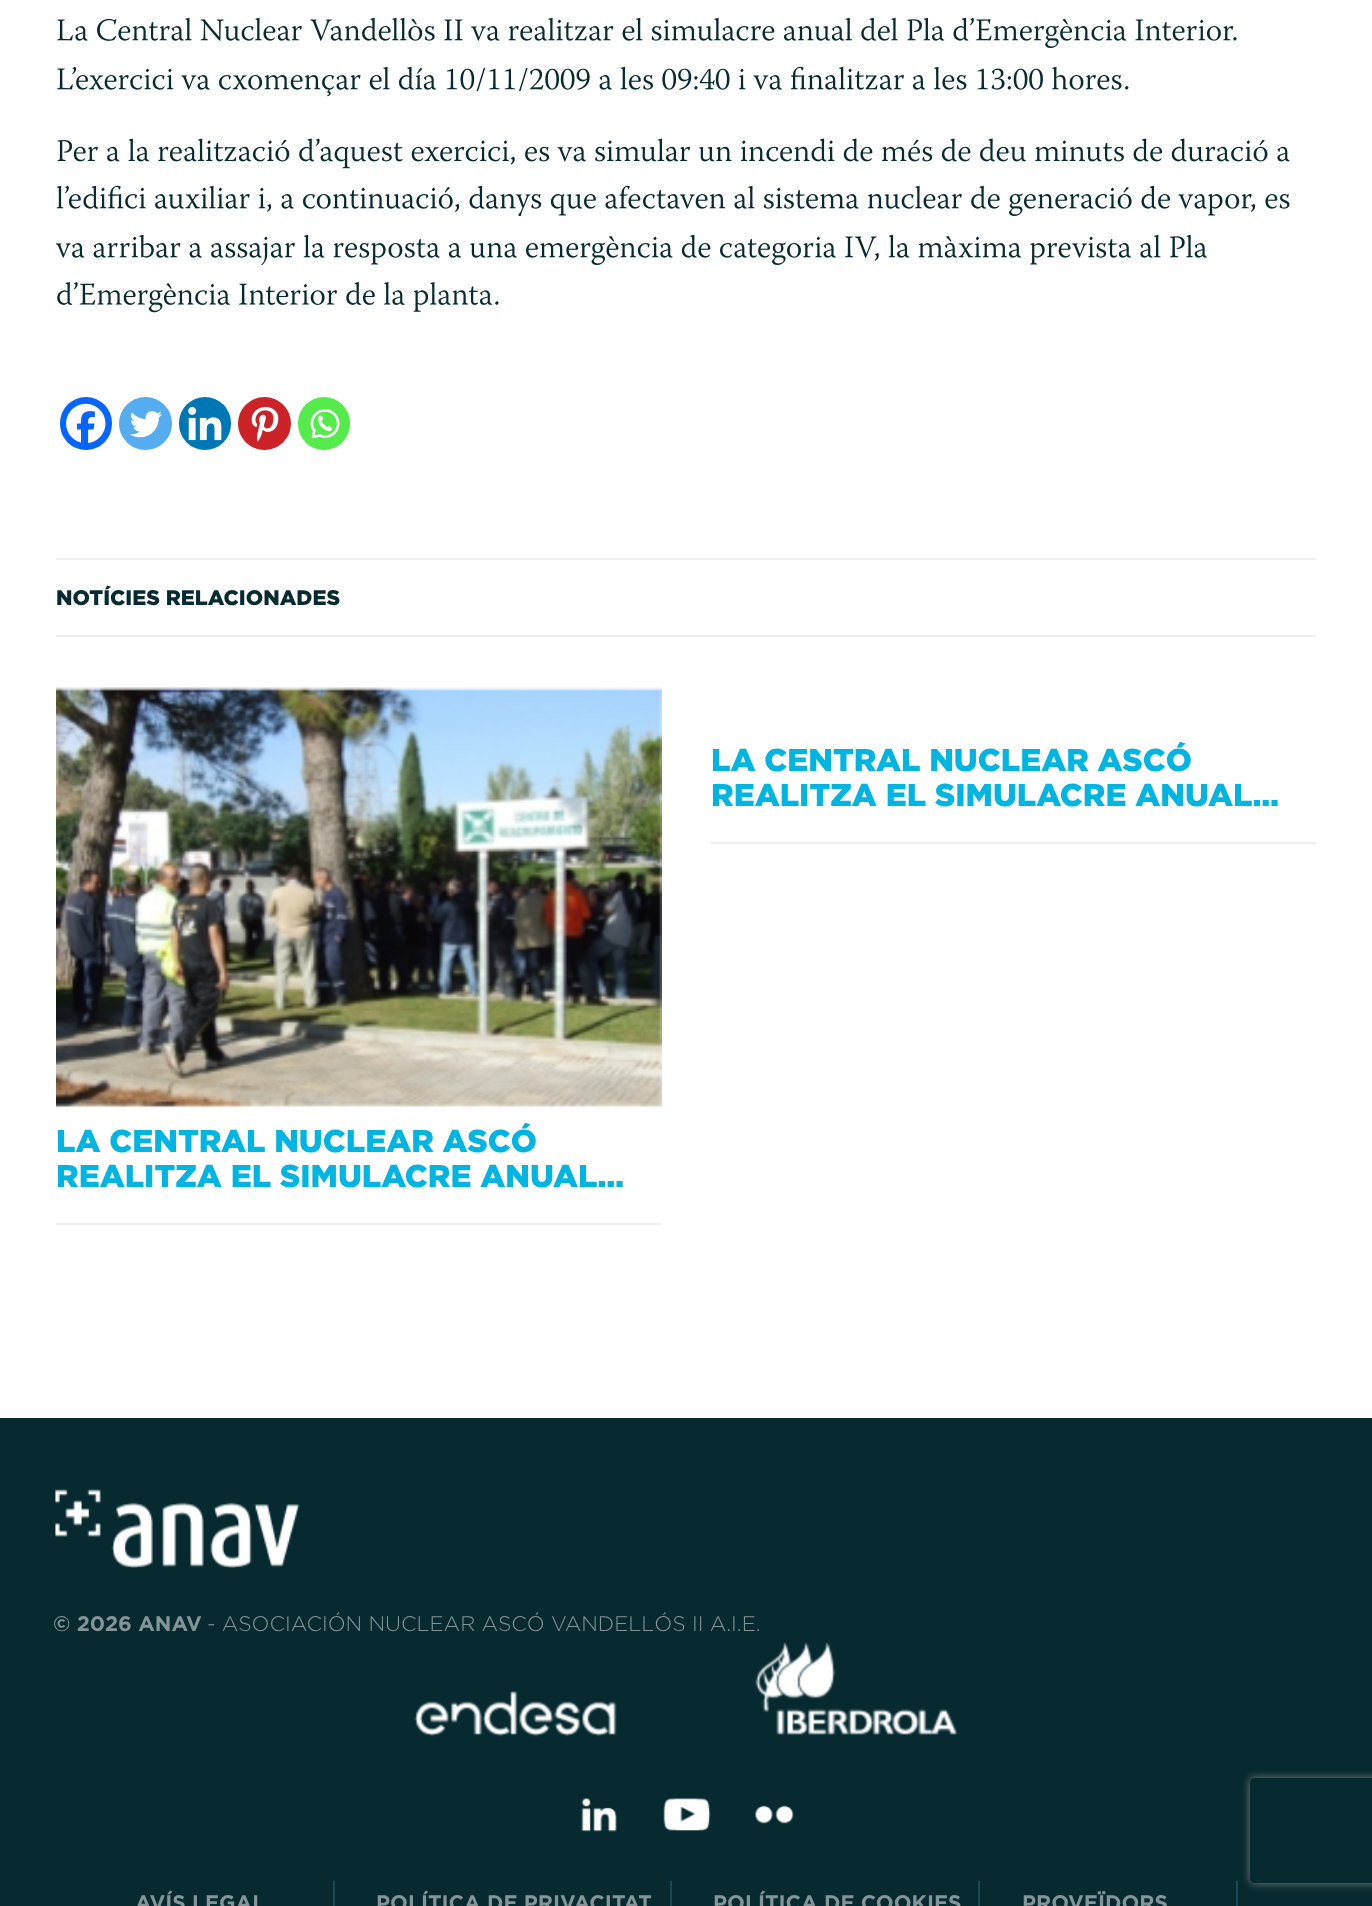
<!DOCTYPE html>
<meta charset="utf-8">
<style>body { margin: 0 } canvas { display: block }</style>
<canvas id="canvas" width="1372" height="1906"></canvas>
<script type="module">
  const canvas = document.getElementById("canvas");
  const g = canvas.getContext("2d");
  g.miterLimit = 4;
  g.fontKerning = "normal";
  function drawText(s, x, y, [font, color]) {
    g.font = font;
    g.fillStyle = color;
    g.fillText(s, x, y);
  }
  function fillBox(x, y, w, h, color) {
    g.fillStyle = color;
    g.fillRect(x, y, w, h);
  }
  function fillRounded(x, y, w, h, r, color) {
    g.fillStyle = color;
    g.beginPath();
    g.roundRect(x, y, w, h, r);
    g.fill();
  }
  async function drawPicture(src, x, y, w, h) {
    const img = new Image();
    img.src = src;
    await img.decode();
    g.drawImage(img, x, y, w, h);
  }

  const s1 = ["900 21px Gotham", "#062A30"];
  const s2 = ["900 31.5px Gotham", "#00B5E2"];
  const s3 = ["bold 21px Gotham", "#839598"];
  const s4 = ["300 21px Gotham", "#839598"];

  fillBox(0, 0, 1372, 1906, "#FFFFFF");
  await drawPicture("pic1.png", 57, 17, 1180, 31);
  await drawPicture("pic2.png", 57, 66, 847, 31);
  await drawPicture("pic3.png", 913, 66, 216, 24);
  await drawPicture("pic4.png", 57, 140, 63, 22);
  await drawPicture("pic5.png", 128, 138, 1162, 31);
  await drawPicture("pic6.png", 56, 185, 1234, 32);
  await drawPicture("pic7.png", 56, 234, 1151, 31);
  await drawPicture("pic8.png", 57, 282, 442, 31);
  fillRounded(60, 397, 52, 53, 26, "#0765FE");
  await drawPicture("pic9.png", 66, 403, 40, 40);
  g.fillStyle = "#55ACEE";
  g.beginPath();
  g.arc(145.5, 423.5, 26.5, 0, Math.PI * 2);
  g.fill();
  await drawPicture("pic10.png", 130, 411, 32, 27);
  fillRounded(179, 397, 52, 53, 26, "#0077B5");
  await drawPicture("pic11.png", 188, 406, 34, 35);
  g.fillStyle = "#CC2329";
  g.beginPath();
  g.arc(264.5, 423.5, 26.5, 0, Math.PI * 2);
  g.fill();
  await drawPicture("pic12.png", 251, 407, 28, 35);
  fillRounded(298, 397, 52, 53, 26, "#55EB4C");
  await drawPicture("pic13.png", 310, 409, 30, 30);
  fillBox(56, 558, 1260, 2, "#F0EFF0");
  fillBox(56, 635, 1260, 2, "#F0EFF0");
  drawText("NOTÍCIES RELACIONADES", 56, 605, s1);
  fillBox(711, 842, 605, 2, "#F0EFF0");
  drawText("LA CENTRAL NUCLEAR ASCÓ", 711, 771, s2);
  drawText("REALITZA EL SIMULACRE ANUAL…", 711, 806, s2);
  fillBox(56, 1223, 606, 2, "#F0EFF0");
  await drawPicture("pic14.png", 56, 687, 606, 421);
  drawText("LA CENTRAL NUCLEAR ASCÓ", 56, 1152, s2);
  drawText("REALITZA EL SIMULACRE ANUAL…", 56, 1187, s2);
  fillBox(0, 1418, 1372, 488, "#062A30");
  await drawPicture("pic15.png", 55, 1489, 245, 79);
  drawText("© 2026 ANAV", 53, 1631, s3);
  drawText("- ASOCIACIÓN NUCLEAR ASCÓ VANDELLÓS II A.I.E.", 207, 1631, s4);
  await drawPicture("pic16.png", 414, 1691, 203, 46);
  await drawPicture("pic17.png", 755, 1642, 203, 93);
  await drawPicture("pic18.png", 581, 1798, 36, 34);
  await drawPicture("pic19.png", 663, 1798, 48, 34);
  await drawPicture("pic20.png", 755, 1805, 39, 19);
  fillBox(333, 1881, 2, 25, "#174955");
  drawText("AVÍS LEGAL", 135, 1910, s3);
  fillBox(670, 1881, 2, 25, "#174955");
  drawText("POLÍTICA DE PRIVACITAT", 376, 1910, s3);
  fillBox(978, 1881, 2, 25, "#174955");
  drawText("POLÍTICA DE COOKIES", 713, 1910, s3);
  fillBox(1236, 1881, 2, 25, "#174955");
  drawText("PROVEÏDORS", 1022, 1910, s3);
  g.save();
  g.beginPath();
  g.moveTo(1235, 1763);
  g.lineTo(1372, 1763);
  g.lineTo(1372, 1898);
  g.lineTo(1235, 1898);
  g.closePath();
  g.moveTo(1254, 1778);
  g.lineTo(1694, 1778);
  g.bezierCurveTo(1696, 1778, 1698, 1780, 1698, 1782);
  g.lineTo(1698, 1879);
  g.bezierCurveTo(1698, 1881, 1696, 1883, 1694, 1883);
  g.lineTo(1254, 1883);
  g.bezierCurveTo(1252, 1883, 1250, 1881, 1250, 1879);
  g.lineTo(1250, 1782);
  g.bezierCurveTo(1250, 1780, 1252, 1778, 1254, 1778);
  g.closePath();
  g.clip("evenodd");
  g.fillStyle = "#808080";
  g.filter = "blur(4.5px)";
  g.beginPath();
  g.roundRect(1250, 1778, 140, 105, 4);
  g.fill();
  g.filter = "none";
  g.restore();
</script>
